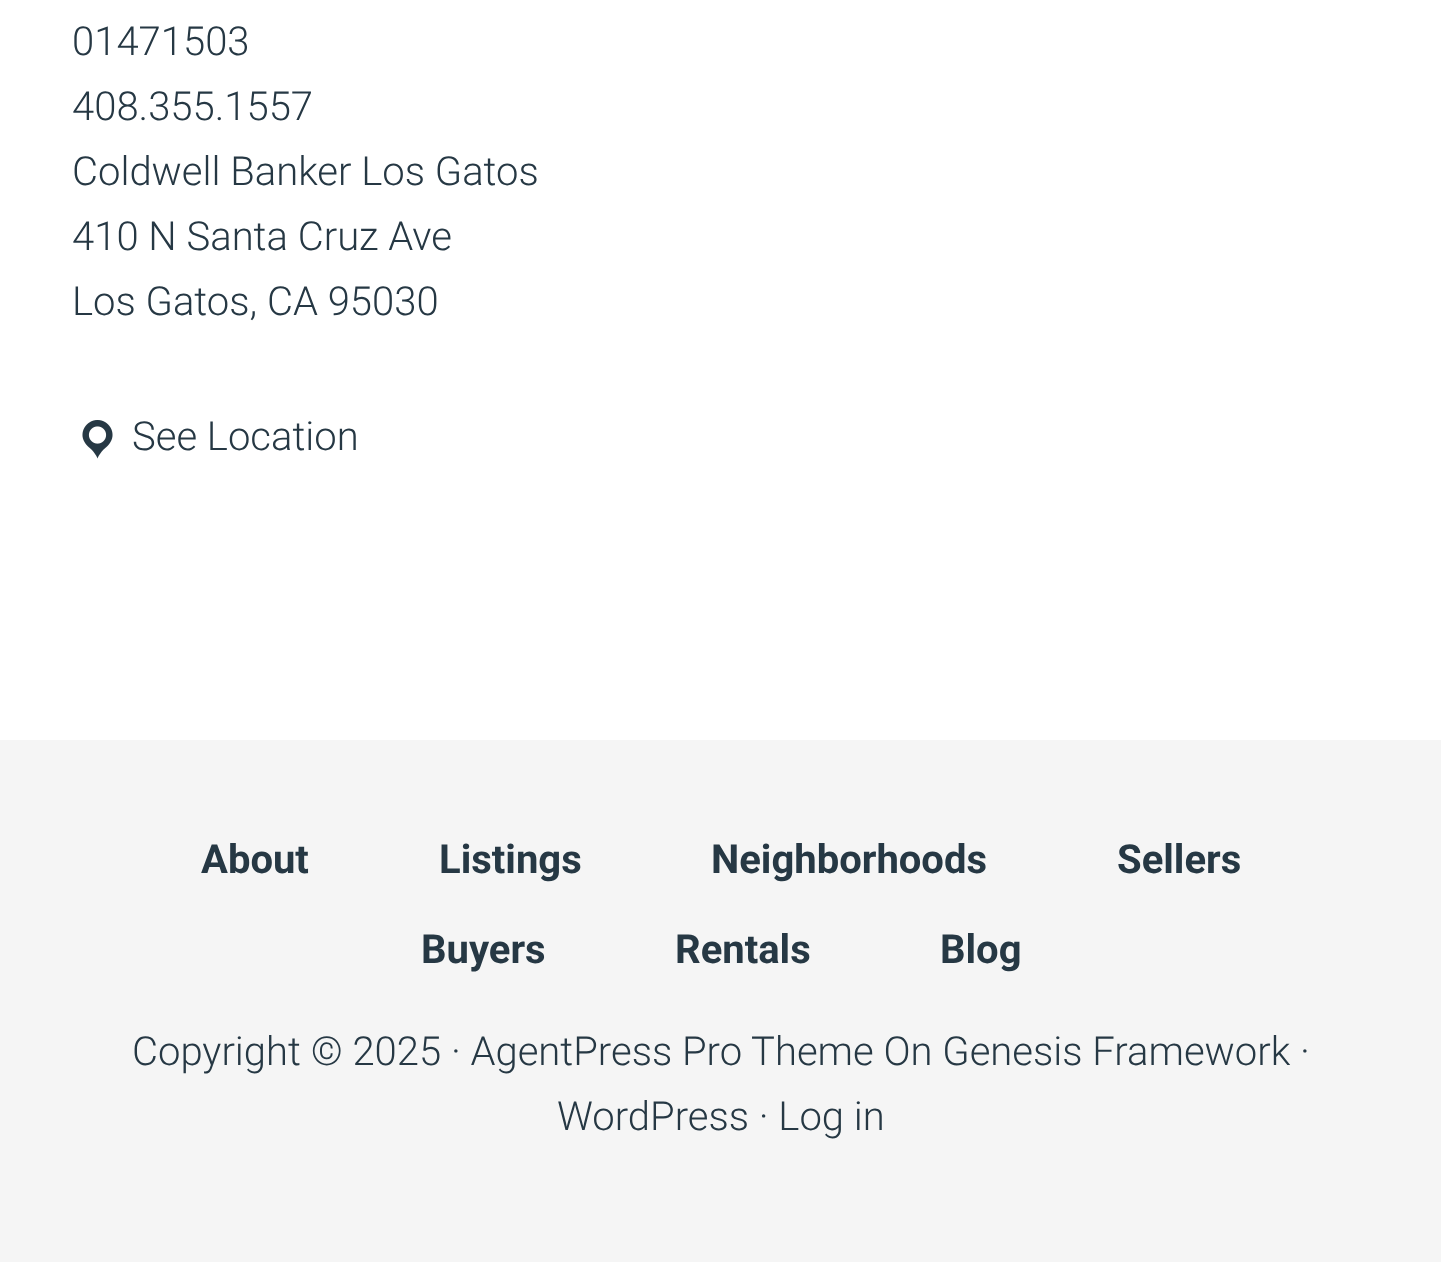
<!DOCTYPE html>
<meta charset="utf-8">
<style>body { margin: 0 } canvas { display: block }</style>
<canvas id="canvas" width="1441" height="1262"></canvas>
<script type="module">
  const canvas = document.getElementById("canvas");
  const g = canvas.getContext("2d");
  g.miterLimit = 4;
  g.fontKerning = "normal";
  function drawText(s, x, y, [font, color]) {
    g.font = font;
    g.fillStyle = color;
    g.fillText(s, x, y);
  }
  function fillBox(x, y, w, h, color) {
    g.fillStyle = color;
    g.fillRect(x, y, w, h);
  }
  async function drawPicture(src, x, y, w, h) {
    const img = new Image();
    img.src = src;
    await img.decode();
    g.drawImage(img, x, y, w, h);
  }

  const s1 = ["300 40px Roboto", "#263844"];
  const s2 = ["bold 40px Roboto", "#263844"];

  fillBox(0, 0, 1441, 1262, "#FFFFFF");
  drawText("01471503", 72, 55, s1);
  drawText("408.355.1557", 72, 120, s1);
  drawText("Coldwell Banker Los Gatos", 72, 185, s1);
  drawText("410 N Santa Cruz Ave", 72, 250, s1);
  drawText("Los Gatos, CA 95030", 72, 315, s1);
  await drawPicture("pic1.png", 82, 420, 31, 39);
  drawText("See Location", 132, 450, s1);
  fillBox(0, 740, 1441, 522, "#F5F5F5");
  drawText("About", 201, 873, s2);
  drawText("Listings", 439, 873, s2);
  drawText("Neighborhoods", 711, 873, s2);
  drawText("Sellers", 1117, 873, s2);
  drawText("Buyers", 421, 963, s2);
  drawText("Rentals", 675, 963, s2);
  drawText("Blog", 940, 963, s2);
  drawText("Copyright © 2025 · AgentPress Pro Theme On Genesis Framework ·", 132, 1065, s1);
  drawText("WordPress · Log in", 557, 1130, s1);
</script>
